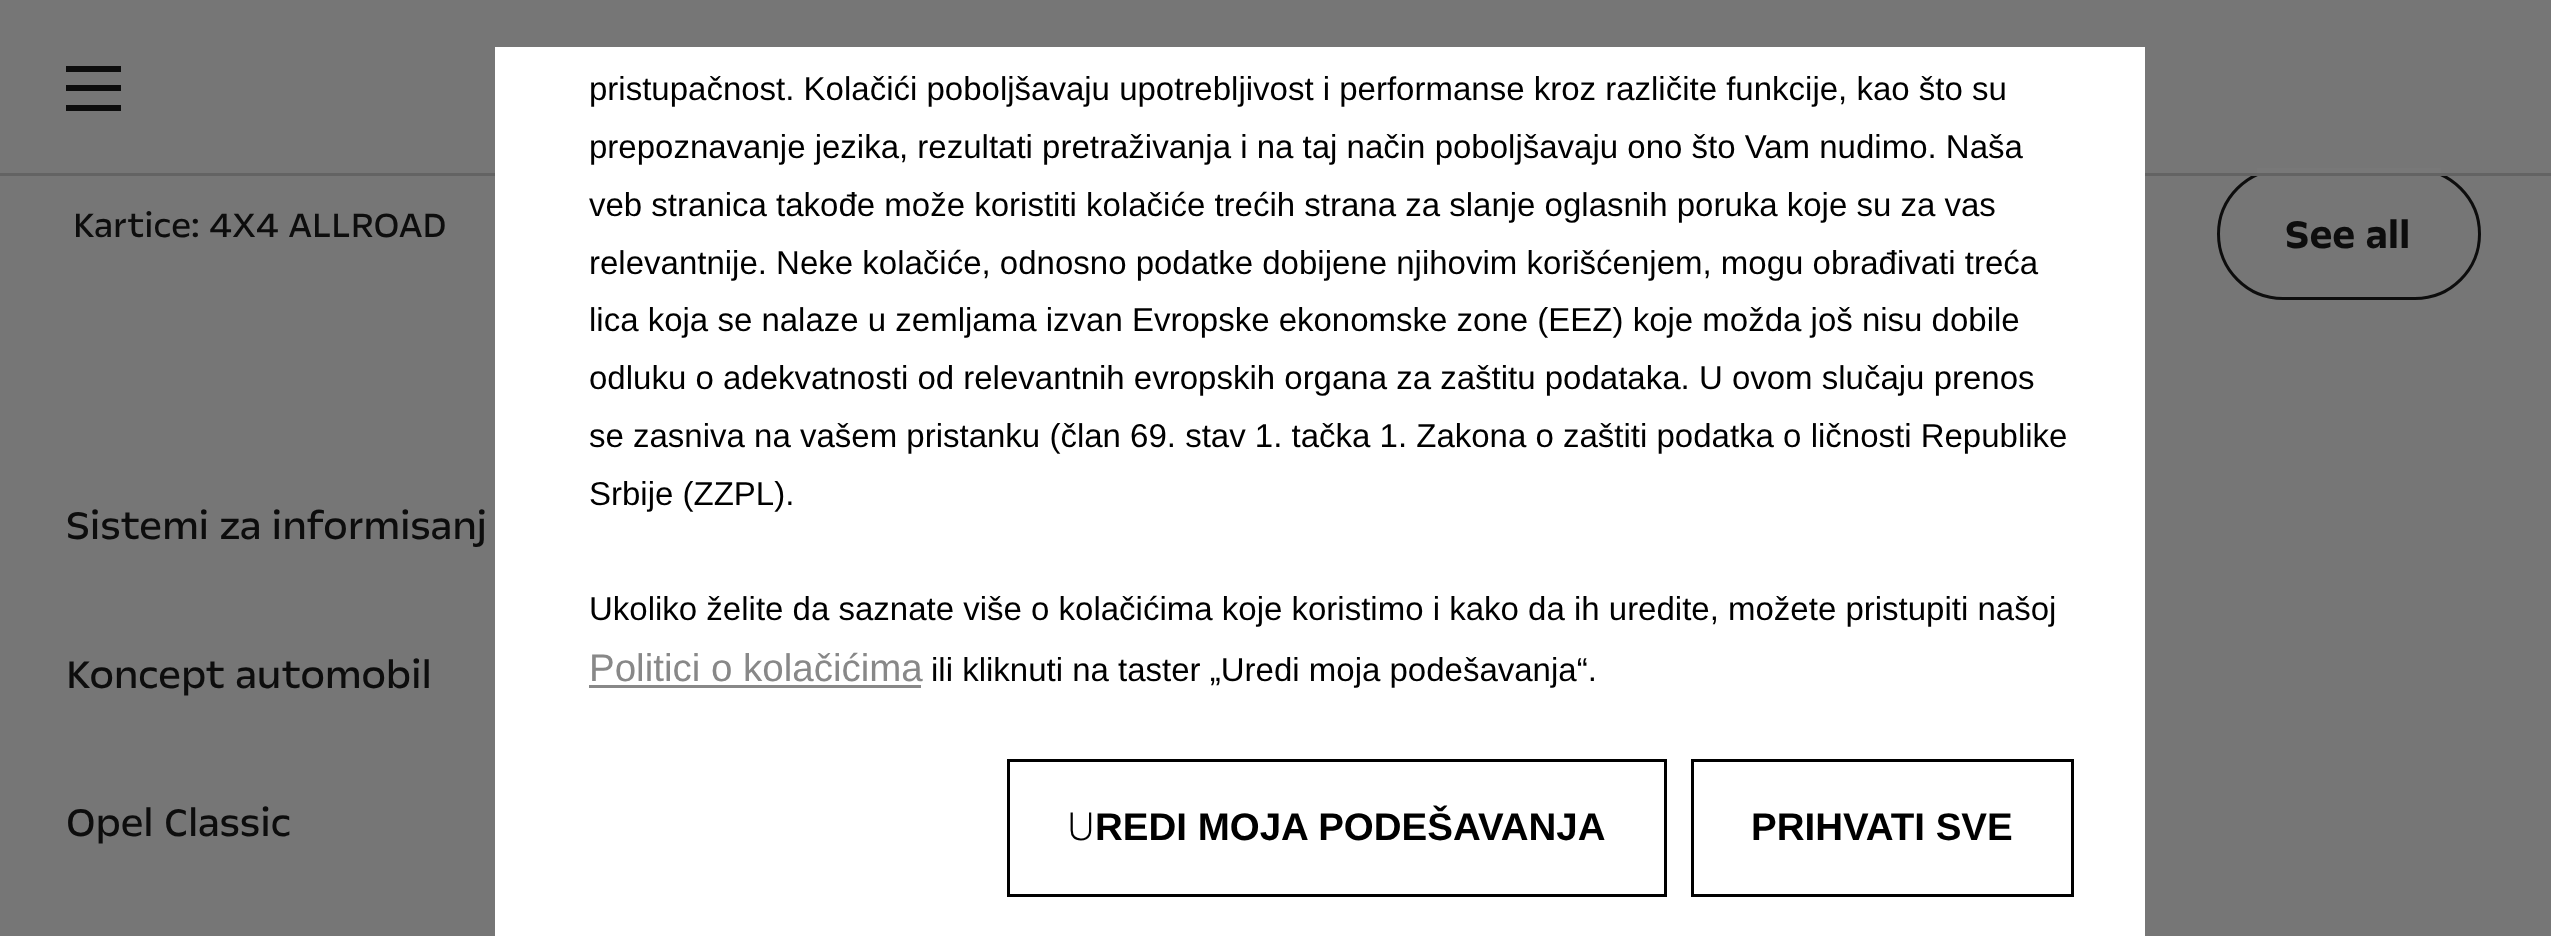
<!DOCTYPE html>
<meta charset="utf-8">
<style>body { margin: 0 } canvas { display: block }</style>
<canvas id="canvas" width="2551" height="936"></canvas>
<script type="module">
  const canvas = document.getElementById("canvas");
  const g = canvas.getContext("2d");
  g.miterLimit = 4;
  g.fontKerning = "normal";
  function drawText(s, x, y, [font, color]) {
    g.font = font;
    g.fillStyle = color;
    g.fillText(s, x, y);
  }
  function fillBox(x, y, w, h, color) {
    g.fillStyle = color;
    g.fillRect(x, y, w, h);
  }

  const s1 = ["33px Liberation Sans", "#000000"];
  const s2 = ["38.5px Liberation Sans", "#888888"];
  const s3 = ["300 38.5px Noto Sans", "#000000"];
  const s4 = ["bold 38.5px Liberation Sans", "#000000"];
  const s5 = ["38.5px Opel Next", "#0D0D0D"];
  const s6 = ["bold 44px Opel Next", "#0D0D0D"];
  const s7 = ["44px Opel Next", "#0D0D0D"];

  fillBox(0, 0, 2551, 936, "#767676");
  g.beginPath();
  g.roundRect(2218.5, 169.5, 261, 129, 64.5);
  g.strokeStyle = "#0D0D0D";
  g.lineWidth = 3;
  g.stroke();
  fillBox(0, 173, 2551, 3, "#636363");
  fillBox(495, 47, 1650, 889, "#FFFFFF");
  drawText("pristupačnost. Kolačići poboljšavaju upotrebljivost i performanse kroz različite funkcije, kao što su", 589, 100, s1);
  drawText("prepoznavanje jezika, rezultati pretraživanja i na taj način poboljšavaju ono što Vam nudimo. Naša", 589, 158, s1);
  drawText("veb stranica takođe može koristiti kolačiće trećih strana za slanje oglasnih poruka koje su za vas", 589, 216, s1);
  drawText("relevantnije. Neke kolačiće, odnosno podatke dobijene njihovim korišćenjem, mogu obrađivati treća", 589, 274, s1);
  drawText("lica koja se nalaze u zemljama izvan Evropske ekonomske zone (EEZ) koje možda još nisu dobile", 589, 331, s1);
  drawText("odluku o adekvatnosti od relevantnih evropskih organa za zaštitu podataka. U ovom slučaju prenos", 589, 389, s1);
  drawText("se zasniva na vašem pristanku (član 69. stav 1. tačka 1. Zakona o zaštiti podatka o ličnosti Republike", 589, 447, s1);
  drawText("Srbije (ZZPL).", 589, 505, s1);
  drawText("Ukoliko želite da saznate više o kolačićima koje koristimo i kako da ih uredite, možete pristupiti našoj", 589, 620, s1);
  drawText("Politici o kolačićima", 589, 681, s2);
  fillBox(589, 685, 332, 3, "#888888");
  drawText("ili kliknuti na taster „Uredi moja podešavanja“.", 931, 681, s1);
  g.strokeStyle = "#000000";
  g.strokeRect(1008.5, 760.5, 657, 135);
  drawText("U", 1067, 840, s3);
  drawText("REDI MOJA PODEŠAVANJA", 1095, 840, s4);
  g.strokeRect(1692.5, 760.5, 380, 135);
  drawText("PRIHVATI SVE", 1751, 840, s4);
  fillBox(2257, 168, 184, 5, "#787878");
  fillBox(66, 105, 55, 6, "#0D0D0D");
  fillBox(66, 85, 55, 6, "#0D0D0D");
  fillBox(66, 66, 55, 6, "#0D0D0D");
  drawText("Kartice: 4X4 ALLROAD", 73, 237, s5);
  drawText("See all", 2285, 248, s6);
  drawText("Sistemi za informisanj", 66, 539, s7);
  drawText("Koncept automobil", 66, 688, s7);
  drawText("Opel Classic", 66, 836, s7);
</script>
